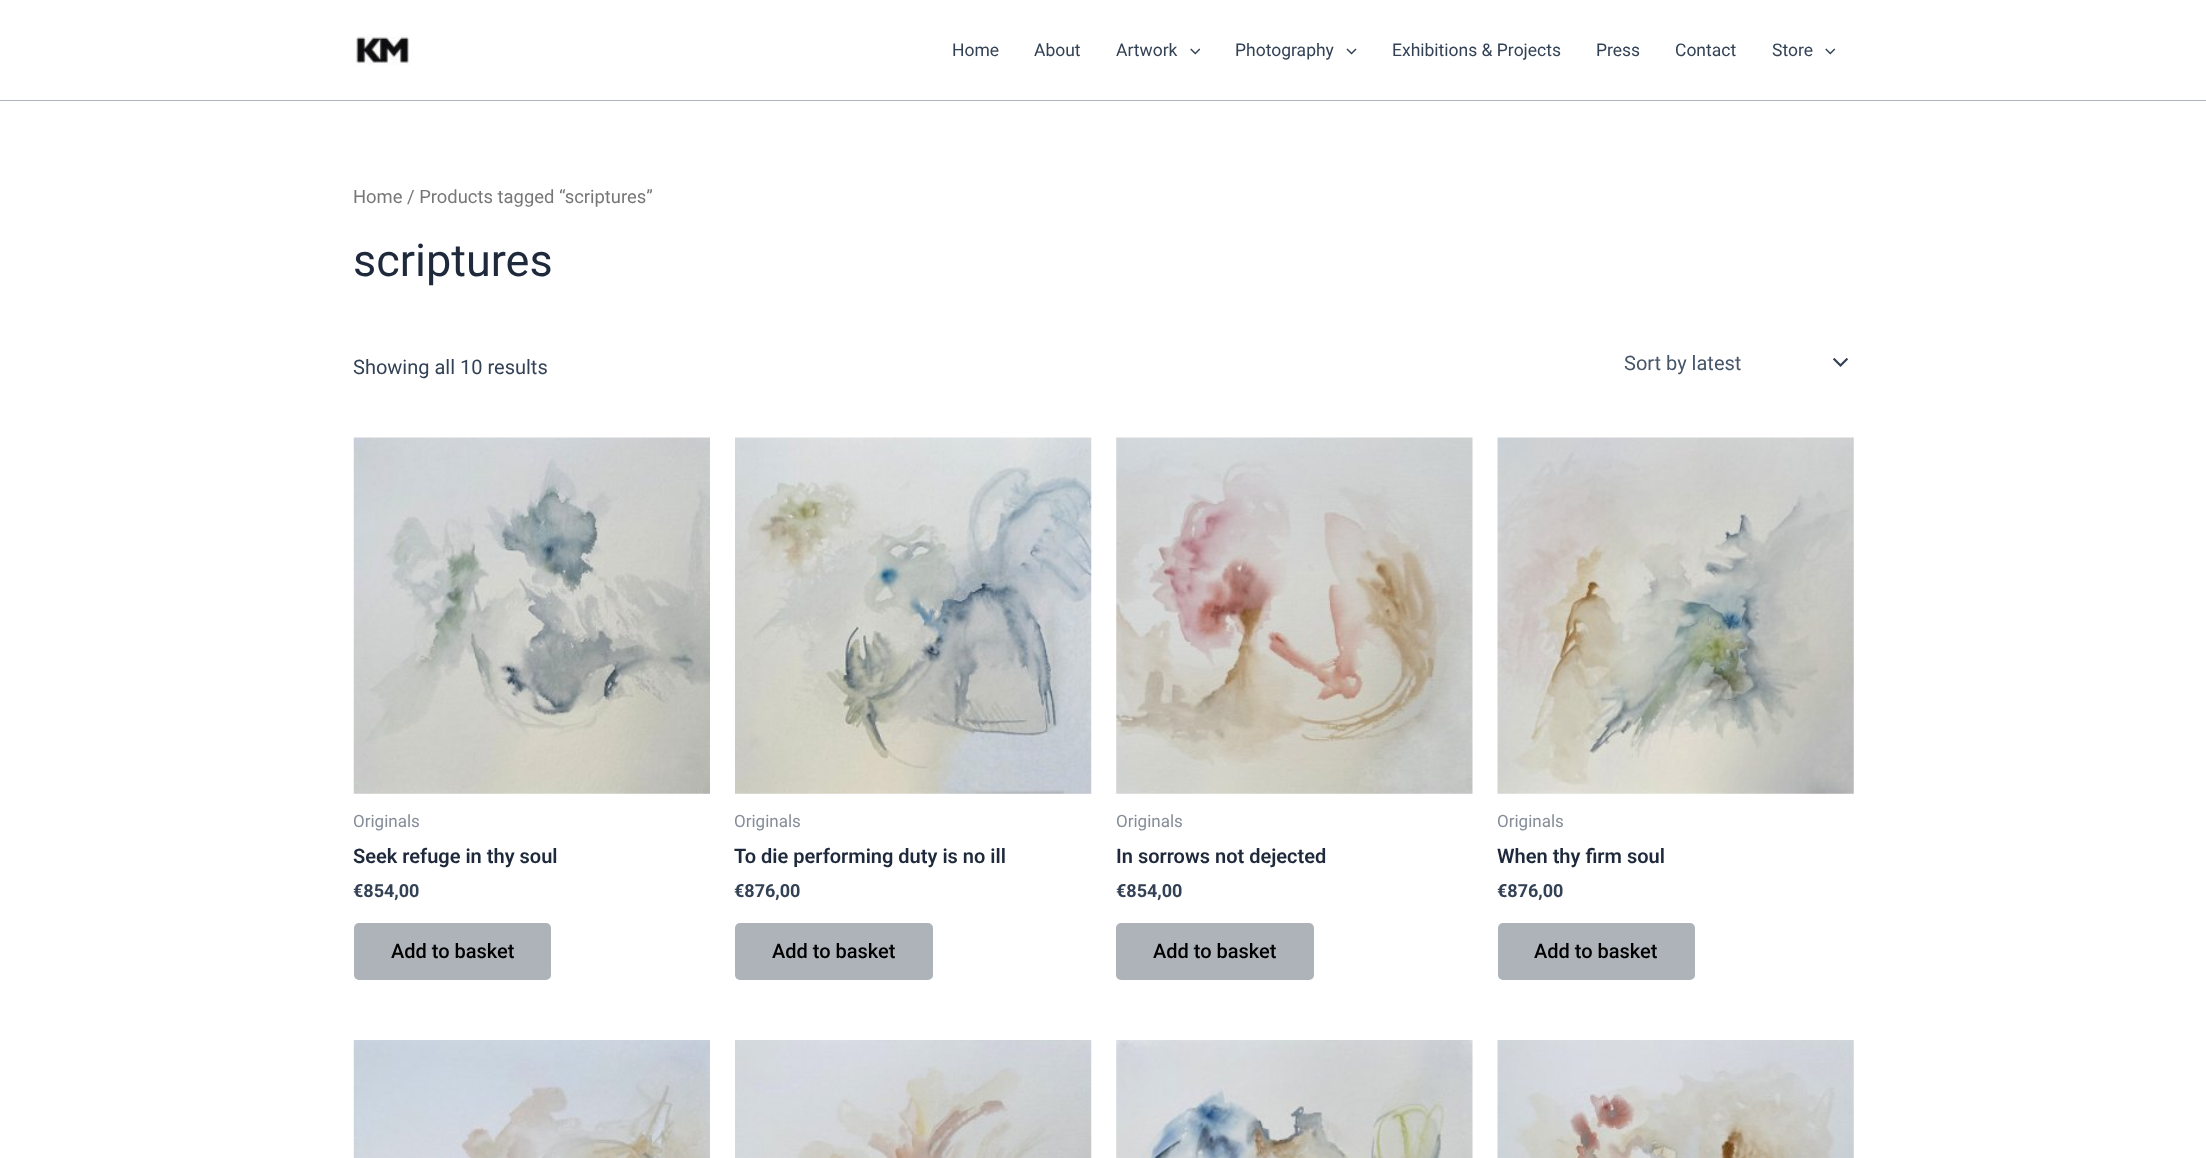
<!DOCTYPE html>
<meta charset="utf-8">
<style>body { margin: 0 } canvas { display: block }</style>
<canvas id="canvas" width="2206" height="1158"></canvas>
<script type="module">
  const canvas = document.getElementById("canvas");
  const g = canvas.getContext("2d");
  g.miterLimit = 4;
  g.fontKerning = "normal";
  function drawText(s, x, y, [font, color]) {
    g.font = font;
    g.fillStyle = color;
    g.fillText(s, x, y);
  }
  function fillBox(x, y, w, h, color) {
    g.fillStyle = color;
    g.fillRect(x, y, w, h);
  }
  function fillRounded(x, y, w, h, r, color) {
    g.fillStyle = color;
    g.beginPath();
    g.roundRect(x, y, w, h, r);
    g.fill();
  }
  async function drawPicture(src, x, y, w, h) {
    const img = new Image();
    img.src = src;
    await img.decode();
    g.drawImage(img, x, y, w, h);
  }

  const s1 = ["17.5px Roboto", "#334155"];
  const s2 = ["18.4px Roboto", "#777777"];
  const s3 = ["45px Roboto", "#1E293B"];
  const s4 = ["20px Roboto", "#334155"];
  const s5 = ["20px Roboto", "#475569"];
  const s6 = ["17px Roboto", "#858D99"];
  const s7 = ["600 20px Roboto", "#1E293B"];
  const s8 = ["bold 18px Roboto", "#334155"];
  const s9 = ["500 20px Roboto", "#000000"];

  fillBox(0, 0, 2206, 1158, "#FFFFFF");
  fillBox(0, 100, 2206, 1, "#AEB3B9");
  await drawPicture("pic1.png", 355, 35, 55, 30);
  drawText("Home", 952, 56, s1);
  drawText("About", 1034, 56, s1);
  drawText("Artwork", 1116, 56, s1);
  await drawPicture("pic2.png", 1190, 48, 10, 7);
  drawText("Photography", 1235, 56, s1);
  await drawPicture("pic3.png", 1346, 48, 11, 7);
  drawText("Exhibitions & Projects", 1392, 56, s1);
  drawText("Press", 1596, 56, s1);
  drawText("Contact", 1675, 56, s1);
  drawText("Store", 1772, 56, s1);
  await drawPicture("pic4.png", 1825, 48, 11, 7);
  drawText("Home / Products tagged “scriptures”", 353, 203, s2);
  drawText("scriptures", 353, 276, s3);
  drawText("Showing all 10 results", 353, 374, s4);
  await drawPicture("pic5.png", 1833, 358, 16, 9);
  drawText("Sort by latest", 1624, 370, s5);
  await drawPicture("pic6.png", 353, 437, 357, 357);
  drawText("Originals", 353, 827, s6);
  drawText("Seek refuge in thy soul", 353, 863, s7);
  drawText("€854,00", 353, 897, s8);
  fillRounded(354, 923, 197, 57, 5, "#AEB3B9");
  drawText("Add to basket", 391, 958, s9);
  await drawPicture("pic7.png", 735, 437, 357, 357);
  drawText("Originals", 734, 827, s6);
  drawText("To die performing duty is no ill", 734, 863, s7);
  drawText("€876,00", 734, 897, s8);
  fillRounded(735, 923, 198, 57, 5, "#AEB3B9");
  drawText("Add to basket", 772, 958, s9);
  await drawPicture("pic8.png", 1116, 437, 357, 357);
  drawText("Originals", 1116, 827, s6);
  drawText("In sorrows not dejected", 1116, 863, s7);
  drawText("€854,00", 1116, 897, s8);
  fillRounded(1116, 923, 198, 57, 5, "#AEB3B9");
  drawText("Add to basket", 1153, 958, s9);
  await drawPicture("pic9.png", 1497, 437, 357, 357);
  drawText("Originals", 1497, 827, s6);
  drawText("When thy firm soul", 1497, 863, s7);
  drawText("€876,00", 1497, 897, s8);
  fillRounded(1498, 923, 197, 57, 5, "#AEB3B9");
  drawText("Add to basket", 1534, 958, s9);
  await drawPicture("pic10.png", 353, 1040, 357, 118);
  await drawPicture("pic11.png", 735, 1040, 357, 118);
  await drawPicture("pic12.png", 1116, 1040, 357, 118);
  await drawPicture("pic13.png", 1497, 1040, 357, 118);
</script>
